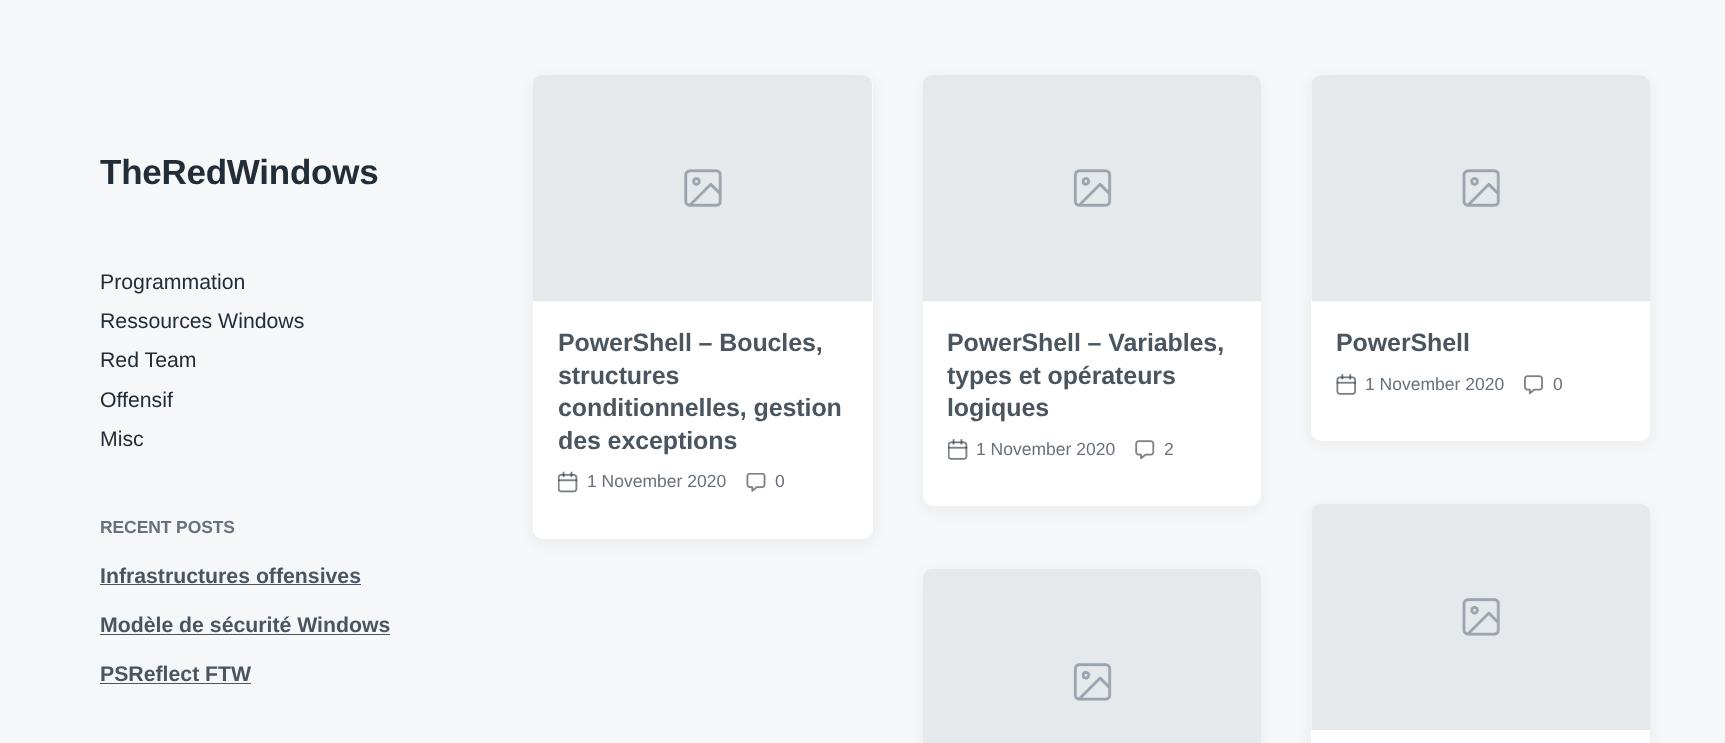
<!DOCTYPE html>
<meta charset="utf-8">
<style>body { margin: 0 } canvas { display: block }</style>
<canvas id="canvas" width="1725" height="743"></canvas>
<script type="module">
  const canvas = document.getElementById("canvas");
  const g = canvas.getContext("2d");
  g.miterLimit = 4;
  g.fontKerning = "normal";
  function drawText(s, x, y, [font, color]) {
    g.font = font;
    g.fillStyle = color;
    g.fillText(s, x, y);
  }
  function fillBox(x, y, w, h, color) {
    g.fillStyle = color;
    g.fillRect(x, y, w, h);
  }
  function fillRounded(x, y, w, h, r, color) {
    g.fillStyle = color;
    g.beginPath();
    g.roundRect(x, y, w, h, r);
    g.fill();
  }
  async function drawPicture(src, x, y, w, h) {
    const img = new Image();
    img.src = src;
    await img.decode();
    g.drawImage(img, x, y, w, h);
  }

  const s1 = ["bold 35px Liberation Sans", "#232D37"];
  const s2 = ["21.25px Liberation Sans", "#232D37"];
  const s3 = ["bold 17.5px Liberation Sans", "#68717B"];
  const s4 = ["bold 21.25px Liberation Sans", "#4B555F"];
  const s5 = ["bold 25px Liberation Sans", "#4B555F"];
  const s6 = ["17.5px Liberation Sans", "#68717B"];

  fillBox(0, 0, 1725, 743, "#F6F7F8");
  g.letterSpacing = "-0.25px";
  drawText("TheRedWindows", 100, 184, s1);
  g.letterSpacing = "0px";
  drawText("Programmation", 100, 289, s2);
  drawText("Ressources Windows", 100, 328, s2);
  drawText("Red Team", 100, 367, s2);
  drawText("Offensif", 100, 407, s2);
  drawText("Misc", 100, 446, s2);
  g.letterSpacing = "-0.1px";
  drawText("RECENT POSTS", 100, 533, s3);
  g.letterSpacing = "0px";
  drawText("Infrastructures offensives", 100, 583, s4);
  fillBox(100, 584, 261, 1, "#4B555F");
  drawText("Modèle de sécurité Windows", 100, 632, s4);
  fillBox(100, 634, 290, 1, "#4B555F");
  drawText("PSReflect FTW", 100, 681, s4);
  fillBox(100, 683, 151, 1, "#4B555F");
  g.fillStyle = "rgba(5, 10, 15, 0.05)";
  g.filter = "blur(7.5px)";
  g.beginPath();
  g.roundRect(533, 79, 340, 464, 10);
  g.fill();
  g.filter = "none";
  fillRounded(533, 75, 340, 464, 10, "#FFFFFF");
  await drawPicture("pic1.png", 533, 75, 340, 227);
  g.letterSpacing = "-0.1px";
  drawText("PowerShell – Boucles,", 558, 351, s5);
  drawText("structures", 558, 384, s5);
  drawText("conditionnelles, gestion", 558, 416, s5);
  drawText("des exceptions", 558, 449, s5);
  await drawPicture("pic2.png", 558, 471, 20, 22);
  g.letterSpacing = "0px";
  drawText("1 November 2020", 587, 487, s6);
  await drawPicture("pic3.png", 746, 473, 20, 19);
  drawText("0", 775, 487, s6);
  g.fillStyle = "rgba(5, 10, 15, 0.05)";
  g.filter = "blur(7.5px)";
  g.beginPath();
  g.roundRect(923, 79, 338, 431, 10);
  g.fill();
  g.filter = "none";
  fillRounded(923, 75, 338, 431, 10, "#FFFFFF");
  await drawPicture("pic4.png", 923, 75, 338, 227);
  g.letterSpacing = "-0.1px";
  drawText("PowerShell – Variables,", 947, 351, s5);
  drawText("types et opérateurs", 947, 384, s5);
  drawText("logiques", 947, 416, s5);
  await drawPicture("pic5.png", 948, 439, 20, 21);
  g.letterSpacing = "0px";
  drawText("1 November 2020", 976, 455, s6);
  await drawPicture("pic6.png", 1135, 440, 20, 20);
  drawText("2", 1164, 455, s6);
  g.fillStyle = "rgba(5, 10, 15, 0.05)";
  g.filter = "blur(7.5px)";
  g.beginPath();
  g.roundRect(1311, 79, 339, 366, 10);
  g.fill();
  g.filter = "none";
  fillRounded(1311, 75, 339, 366, 10, "#FFFFFF");
  await drawPicture("pic7.png", 1311, 75, 339, 227);
  g.letterSpacing = "-0.1px";
  drawText("PowerShell", 1336, 351, s5);
  await drawPicture("pic8.png", 1336, 374, 20, 21);
  g.letterSpacing = "0px";
  drawText("1 November 2020", 1365, 390, s6);
  await drawPicture("pic9.png", 1524, 375, 19, 20);
  drawText("0", 1553, 390, s6);
  g.fillStyle = "rgba(5, 10, 15, 0.05)";
  g.filter = "blur(7.5px)";
  g.beginPath();
  g.roundRect(923, 573, 338, 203, 10);
  g.fill();
  g.filter = "none";
  await drawPicture("pic10.png", 923, 569, 338, 174);
  g.filter = "blur(7.5px)";
  g.beginPath();
  g.roundRect(1311, 508, 339, 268, 10);
  g.fill();
  g.filter = "none";
  fillRounded(1311, 504, 339, 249, 10, "#FFFFFF");
  await drawPicture("pic11.png", 1311, 504, 339, 226);
</script>
